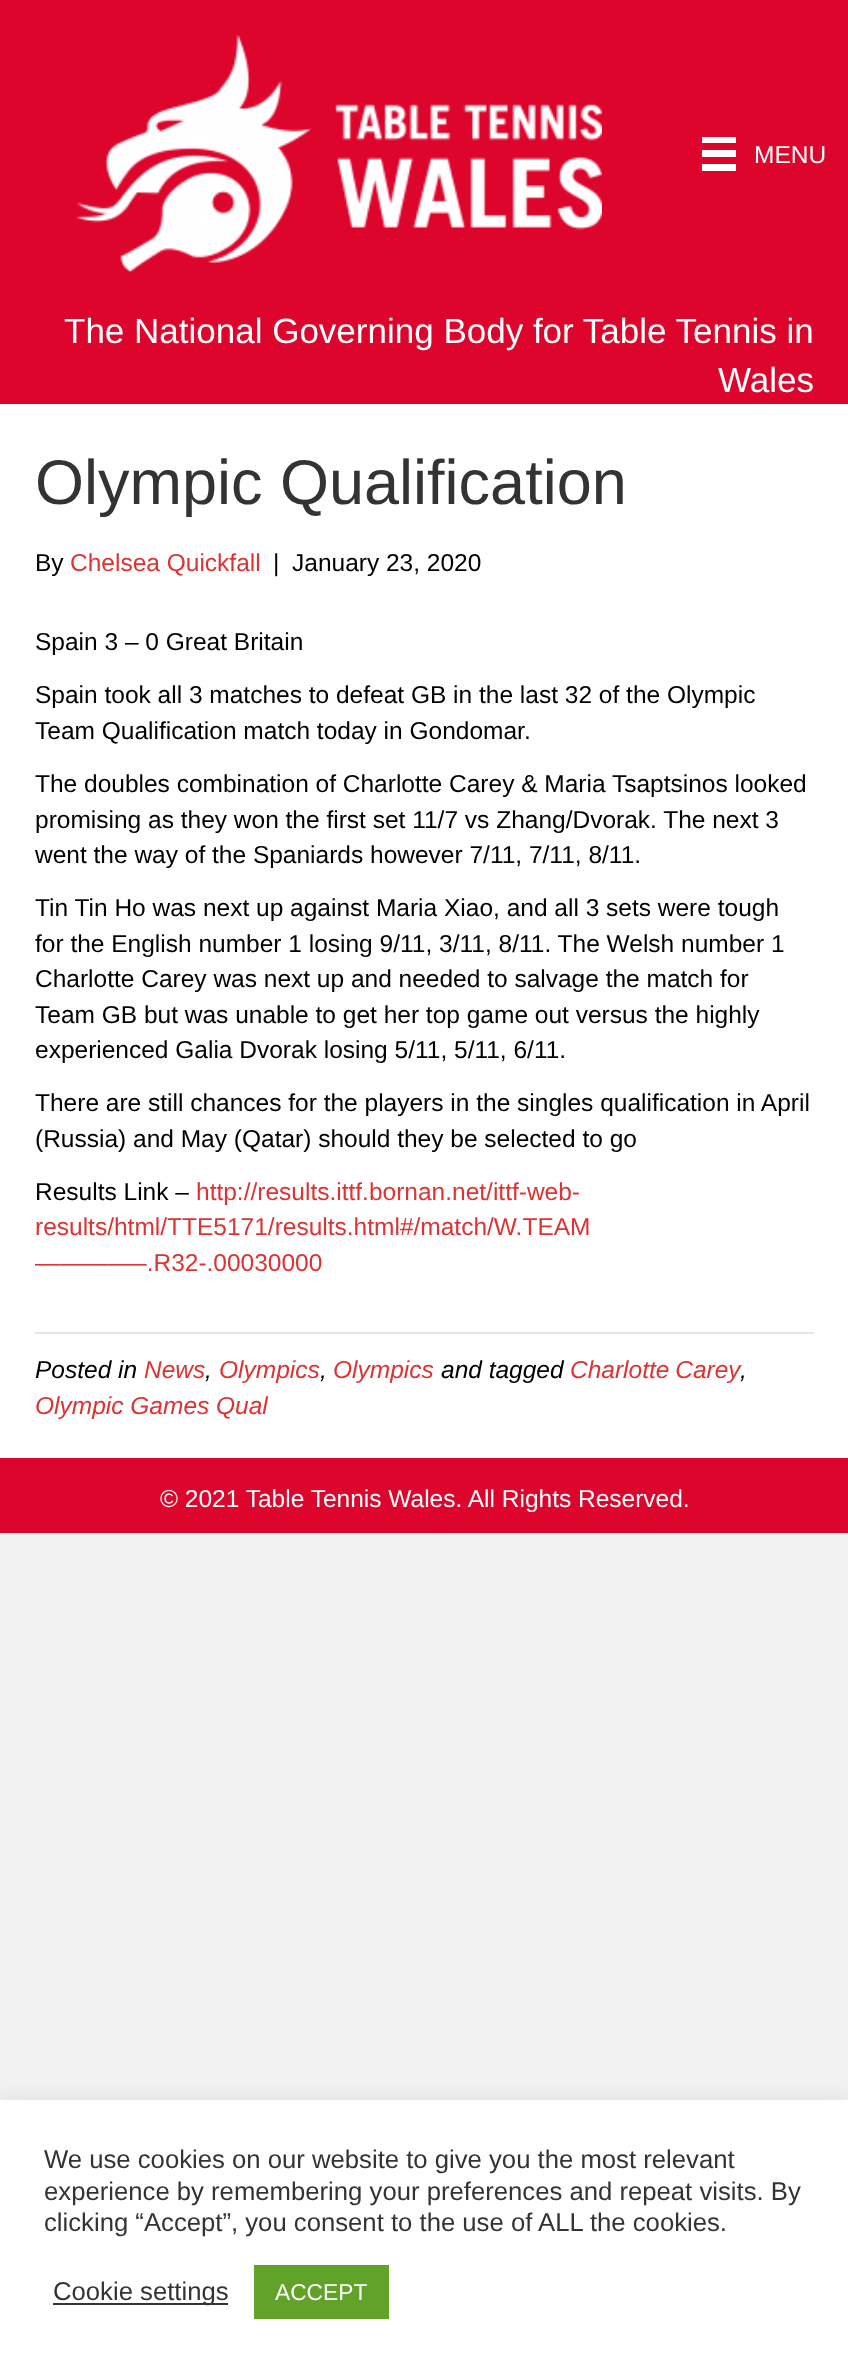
<!DOCTYPE html>
<meta charset="utf-8">
<style>body { margin: 0 } canvas { display: block }</style>
<canvas id="canvas" width="848" height="2371"></canvas>
<script type="module">
  const canvas = document.getElementById("canvas");
  const g = canvas.getContext("2d");
  g.miterLimit = 4;
  g.fontKerning = "normal";
  function drawText(s, x, y, [font, color]) {
    g.font = font;
    g.fillStyle = color;
    g.fillText(s, x, y);
  }
  function fillBox(x, y, w, h, color) {
    g.fillStyle = color;
    g.fillRect(x, y, w, h);
  }
  async function drawPicture(src, x, y, w, h) {
    const img = new Image();
    img.src = src;
    await img.decode();
    g.drawImage(img, x, y, w, h);
  }

  const s1 = ["24.5px Liberation Sans", "#FFFFFF"];
  const s2 = ["35px Liberation Sans", "#FFFFFF"];
  const s3 = ["63px Liberation Sans", "#333333"];
  const s4 = ["24.5px Liberation Sans", "#000000"];
  const s5 = ["24.5px Liberation Sans", "#DD3333"];
  const s6 = ["italic 24.5px Liberation Sans", "#000000"];
  const s7 = ["italic 24.5px Liberation Sans", "#DD3333"];
  const s8 = ["25.7px Liberation Sans", "#333333"];
  const s9 = ["22.75px Liberation Sans", "#FFFFFF"];

  fillBox(0, 0, 848, 2371, "#F2F2F2");
  fillBox(0, 0, 848, 404, "#DD052B");
  await drawPicture("pic1.png", 77, 35, 525, 237);
  fillBox(702, 137, 34, 6, "#FFFFFF");
  fillBox(702, 150, 34, 7, "#FFFFFF");
  fillBox(702, 164, 34, 7, "#FFFFFF");
  drawText("MENU", 754, 163, s1);
  drawText("The National Governing Body for Table Tennis in", 64, 343, s2);
  drawText("Wales", 718, 392, s2);
  fillBox(0, 404, 848, 1054, "#FFFFFF");
  drawText("Olympic Qualification", 35, 504, s3);
  drawText("By", 35, 571, s4);
  drawText("Chelsea Quickfall", 70, 571, s5);
  drawText("|", 273, 571, s4);
  drawText("January 23, 2020", 292, 571, s4);
  drawText("Spain 3 – 0 Great Britain", 35, 650, s4);
  drawText("Spain took all 3 matches to defeat GB in the last 32 of the Olympic", 35, 703, s4);
  drawText("Team Qualification match today in Gondomar.", 35, 739, s4);
  drawText("The doubles combination of Charlotte Carey & Maria Tsaptsinos looked", 35, 792, s4);
  drawText("promising as they won the first set 11/7 vs Zhang/Dvorak. The next 3", 35, 828, s4);
  drawText("went the way of the Spaniards however 7/11, 7/11, 8/11.", 35, 863, s4);
  drawText("Tin Tin Ho was next up against Maria Xiao, and all 3 sets were tough", 35, 916, s4);
  drawText("for the English number 1 losing 9/11, 3/11, 8/11. The Welsh number 1", 35, 952, s4);
  drawText("Charlotte Carey was next up and needed to salvage the match for", 35, 987, s4);
  drawText("Team GB but was unable to get her top game out versus the highly", 35, 1023, s4);
  drawText("experienced Galia Dvorak losing 5/11, 5/11, 6/11.", 35, 1058, s4);
  drawText("There are still chances for the players in the singles qualification in April", 35, 1111, s4);
  drawText("(Russia) and May (Qatar) should they be selected to go", 35, 1147, s4);
  drawText("Results Link –", 35, 1200, s4);
  drawText("http://results.ittf.bornan.net/ittf-web-", 196, 1200, s5);
  drawText("results/html/TTE5171/results.html#/match/W.TEAM", 35, 1235, s5);
  drawText("————–.R32-.00030000", 35, 1271, s5);
  fillBox(35, 1332, 779, 2, "#E6E6E6");
  drawText("Posted in", 35, 1378, s6);
  drawText("News", 144, 1378, s7);
  drawText(",", 205, 1378, s6);
  drawText("Olympics", 219, 1378, s7);
  drawText(",", 320, 1378, s6);
  drawText("Olympics", 333, 1378, s7);
  drawText("and tagged", 441, 1378, s6);
  g.wordSpacing = "-1px";
  drawText("Charlotte Carey", 570, 1378, s7);
  g.wordSpacing = "0px";
  drawText(",", 740, 1378, s6);
  drawText("Olympic Games Qual", 35, 1414, s7);
  fillBox(0, 1458, 848, 75, "#DD052B");
  drawText("© 2021 Table Tennis Wales. All Rights Reserved.", 160, 1507, s1);
  g.fillStyle = "rgba(172, 171, 171, 0.3)";
  g.filter = "blur(9px)";
  g.beginPath();
  g.rect(0, 2098, 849, 272);
  g.fill();
  g.filter = "none";
  fillBox(0, 2100, 848, 271, "#FFFFFF");
  drawText("We use cookies on our website to give you the most relevant", 44, 2168, s8);
  drawText("experience by remembering your preferences and repeat visits. By", 44, 2200, s8);
  drawText("clicking “Accept”, you consent to the use of ALL the cookies.", 44, 2231, s8);
  fillBox(53, 2303, 175, 2, "#333333");
  drawText("Cookie settings", 53, 2300, s8);
  fillBox(254, 2265, 135, 54, "#61A229");
  drawText("ACCEPT", 275, 2300, s9);
</script>
